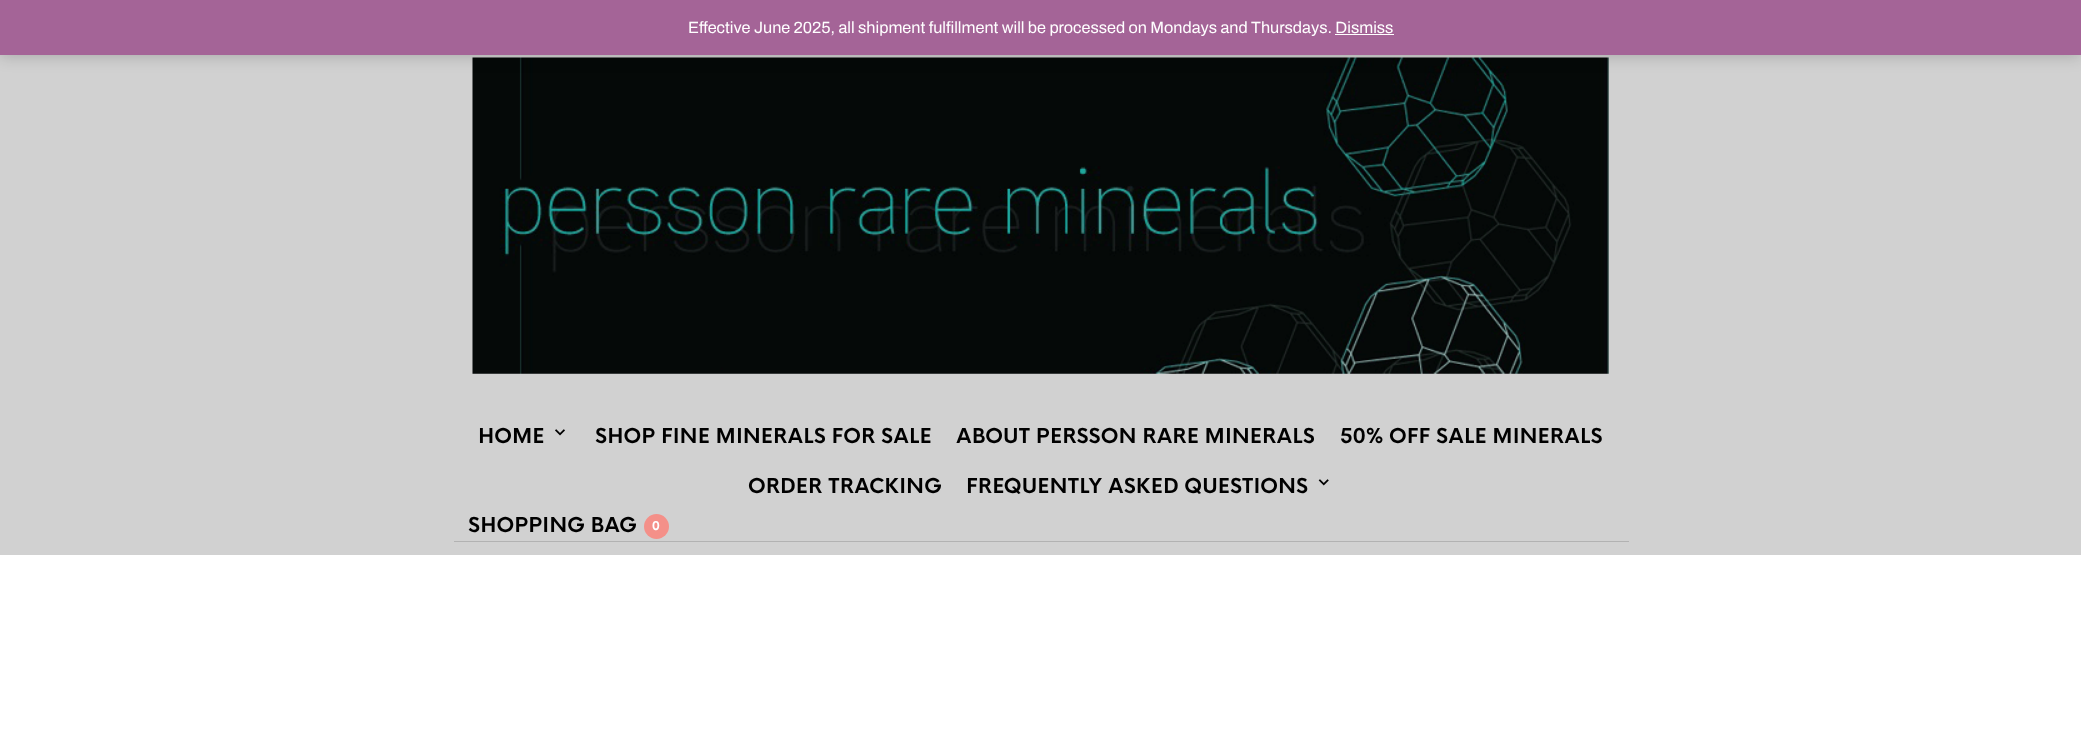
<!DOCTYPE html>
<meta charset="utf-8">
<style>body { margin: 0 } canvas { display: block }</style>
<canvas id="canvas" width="2081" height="736"></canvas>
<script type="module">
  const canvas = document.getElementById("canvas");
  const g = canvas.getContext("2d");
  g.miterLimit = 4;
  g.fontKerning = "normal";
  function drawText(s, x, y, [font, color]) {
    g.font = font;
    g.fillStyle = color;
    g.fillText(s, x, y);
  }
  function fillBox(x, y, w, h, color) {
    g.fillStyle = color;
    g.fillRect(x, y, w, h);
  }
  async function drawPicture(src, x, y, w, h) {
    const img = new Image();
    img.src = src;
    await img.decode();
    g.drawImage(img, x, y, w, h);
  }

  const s1 = ["16.25px Archivo", "#FFFFFF"];
  const s2 = ["bold 20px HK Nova", "#000000"];
  const s3 = ["bold 12px HK Nova", "#FFFFFF"];

  fillBox(0, 0, 2081, 736, "#FFFFFF");
  fillBox(0, 55, 2081, 500, "#D1D1D1");
  await drawPicture("pic1.png", 472, 57, 1137, 317);
  g.fillStyle = "rgba(0, 0, 0, 0.2)";
  g.filter = "blur(8px)";
  g.beginPath();
  g.rect(0, 1, 2081, 55);
  g.fill();
  g.filter = "none";
  fillBox(0, 0, 2081, 55, "#A46497");
  drawText("Effective June 2025, all shipment fulfillment will be processed on Mondays and Thursdays. Dismiss", 688, 33, s1);
  fillBox(1335, 34, 59, 1, "#FFFFFF");
  fillBox(454, 541, 1175, 1, "#B2B2B2");
  await drawPicture("pic2.png", 555, 429, 10, 7);
  drawText("HOME", 478, 443, s2);
  drawText("SHOP FINE MINERALS FOR SALE", 595, 443, s2);
  drawText("ABOUT PERSSON RARE MINERALS", 956, 443, s2);
  drawText("50% OFF SALE MINERALS", 1340, 443, s2);
  drawText("ORDER TRACKING", 748, 493, s2);
  await drawPicture("pic3.png", 1318, 479, 11, 7);
  drawText("FREQUENTLY ASKED QUESTIONS", 966, 493, s2);
  drawText("SHOPPING BAG", 468, 532, s2);
  g.fillStyle = "#F49089";
  g.beginPath();
  g.arc(656.5, 526.5, 12.5, 0, Math.PI * 2);
  g.fill();
  drawText("0", 652, 530, s3);
</script>
